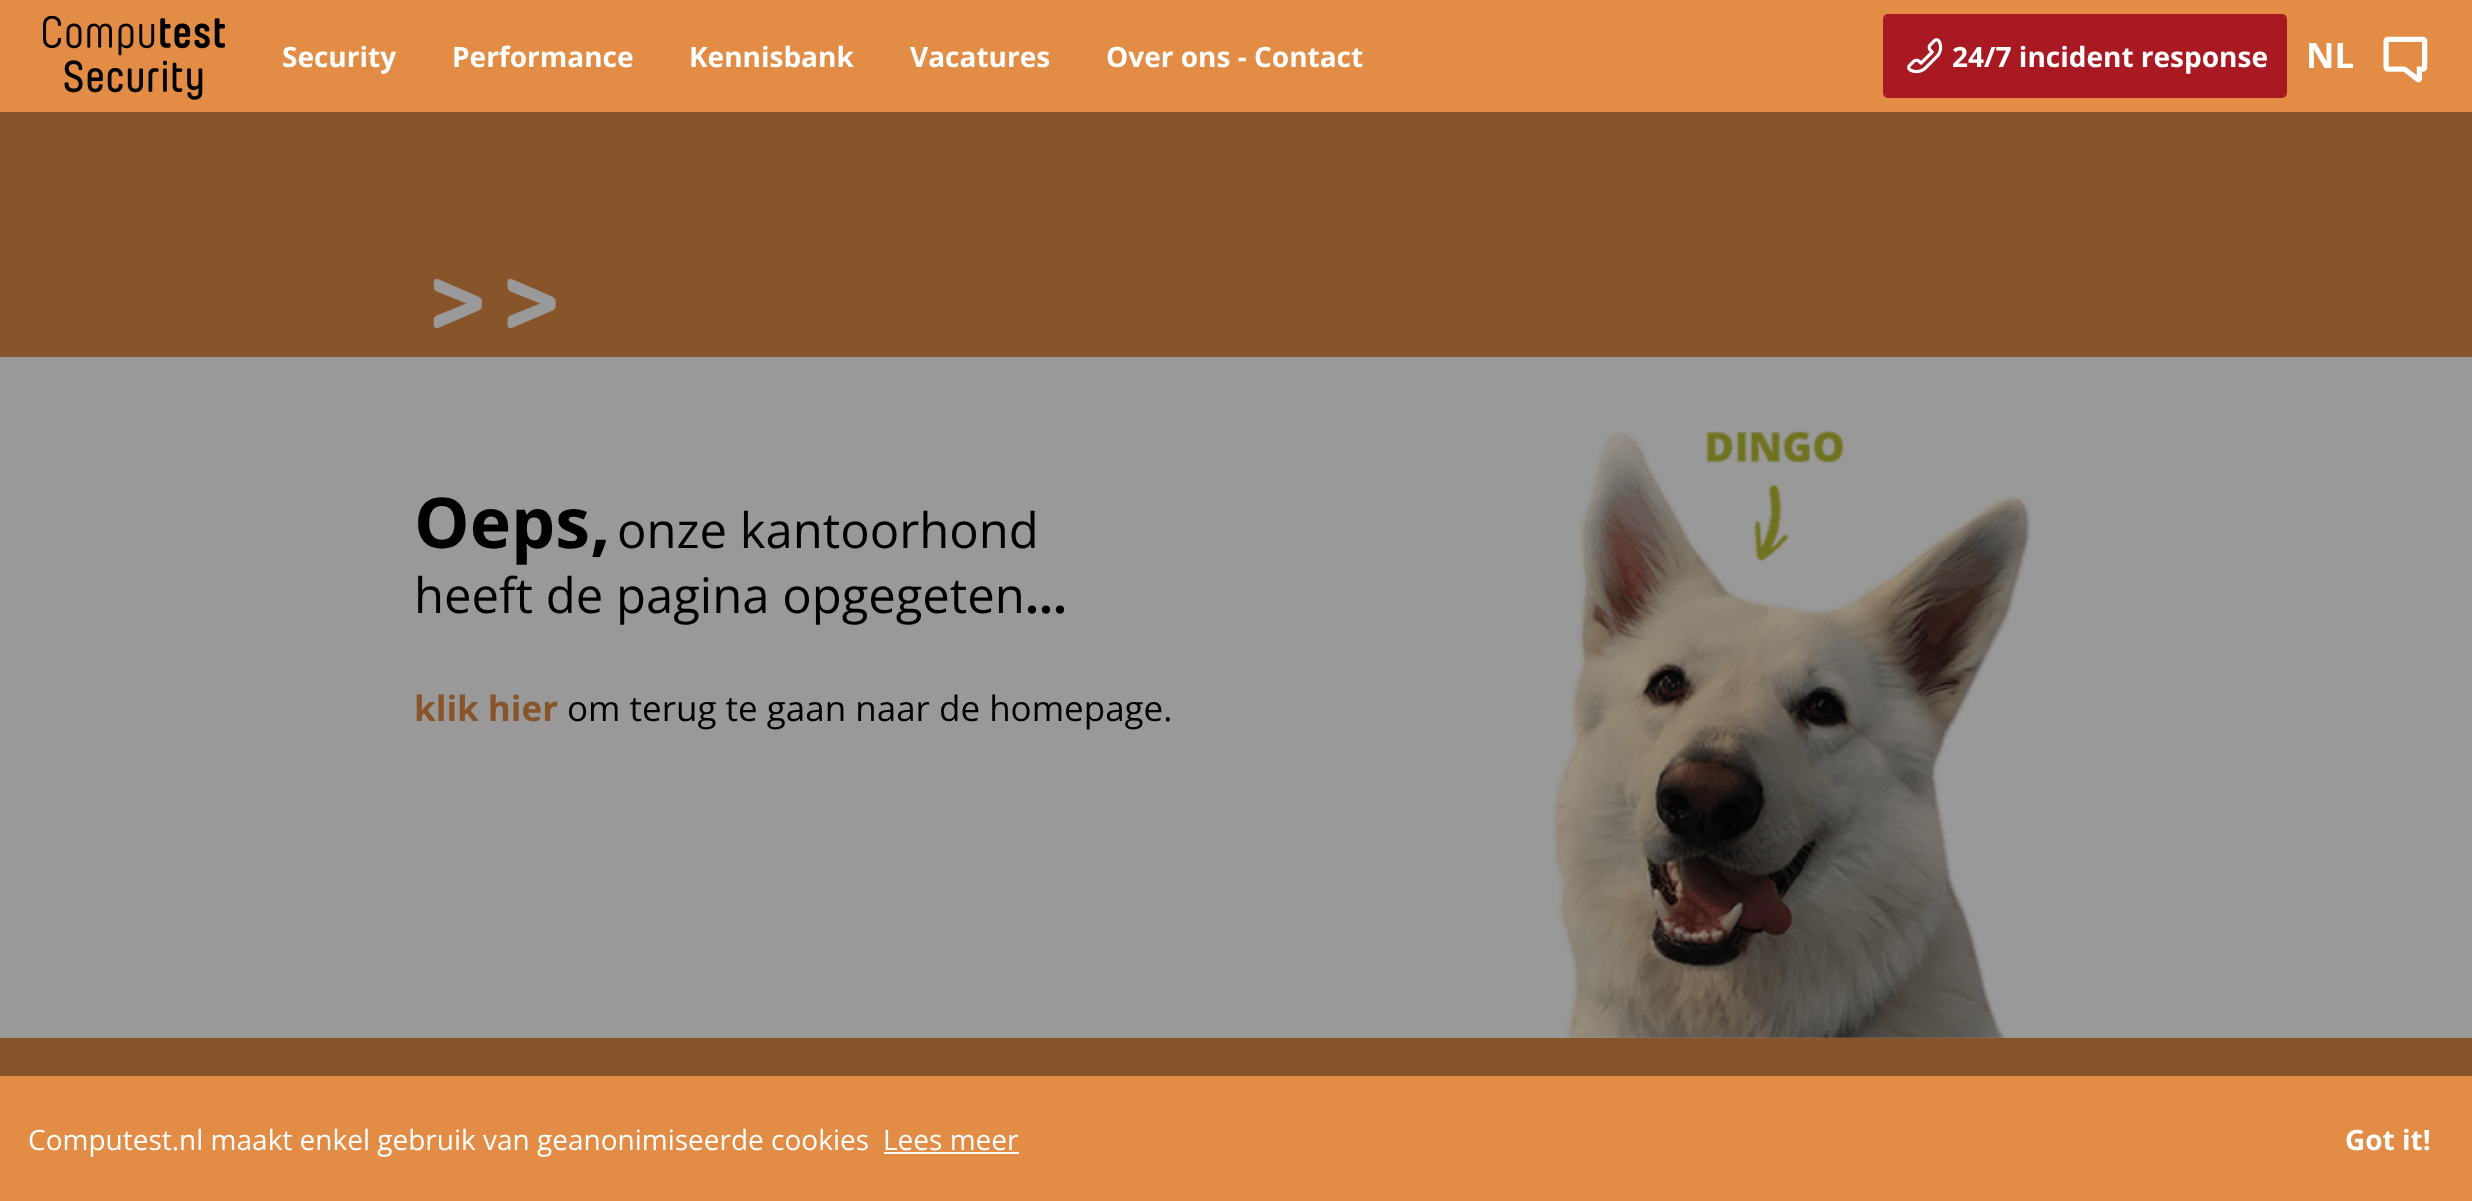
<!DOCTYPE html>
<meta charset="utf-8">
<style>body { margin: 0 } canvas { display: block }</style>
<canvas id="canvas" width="2472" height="1201"></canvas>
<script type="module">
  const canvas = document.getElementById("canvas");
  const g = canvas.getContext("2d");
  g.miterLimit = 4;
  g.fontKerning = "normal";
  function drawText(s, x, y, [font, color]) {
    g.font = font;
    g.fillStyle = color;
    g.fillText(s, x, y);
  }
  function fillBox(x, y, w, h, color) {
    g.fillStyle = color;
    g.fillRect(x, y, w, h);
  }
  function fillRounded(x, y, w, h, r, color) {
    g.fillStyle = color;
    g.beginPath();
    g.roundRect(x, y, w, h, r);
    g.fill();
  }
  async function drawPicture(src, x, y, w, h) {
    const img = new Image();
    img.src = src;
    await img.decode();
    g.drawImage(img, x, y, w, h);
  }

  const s1 = ["bold 28px Open Sans", "#FFFFFF"];
  const s2 = ["bold 35px Open Sans", "#FFFFFF"];
  const s3 = ["bold 112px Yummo", "#999999"];
  const s4 = ["bold 70px Open Sans", "#000000"];
  const s5 = ["49px Open Sans", "#000000"];
  const s6 = ["bold 49px Open Sans", "#000000"];
  const s7 = ["bold 35px Open Sans", "#885429"];
  const s8 = ["35px Open Sans", "#000000"];
  const s9 = ["28px Open Sans", "#FFFFFF"];

  fillBox(0, 0, 2472, 1201, "#999999");
  fillBox(0, 112, 2472, 245, "#885429");
  fillBox(0, 0, 2472, 112, "#E28C45");
  await drawPicture("pic1.png", 43, 16, 183, 84);
  drawText("Security", 282, 67, s1);
  drawText("Performance", 452, 67, s1);
  drawText("Kennisbank", 689, 67, s1);
  drawText("Vacatures", 910, 67, s1);
  drawText("Over ons - Contact", 1106, 67, s1);
  fillRounded(1883, 14, 404, 84, 5, "#A91922");
  await drawPicture("pic2.png", 1907, 38, 36, 36);
  drawText("24/7 incident response", 1952, 67, s1);
  drawText("NL", 2306, 68, s2);
  await drawPicture("pic3.png", 2383, 36, 45, 47);
  g.letterSpacing = "14px";
  drawText(">>", 428, 343, s3);
  g.letterSpacing = "0px";
  drawText("Oeps,", 414, 548, s4);
  drawText("onze kantoorhond", 617, 548, s5);
  drawText("heeft de pagina opgegeten", 414, 613, s5);
  drawText("...", 1025, 613, s6);
  drawText("klik hier", 414, 721, s7);
  drawText("om terug te gaan naar de homepage.", 567, 721, s8);
  await drawPicture("pic4.png", 1552, 430, 479, 608);
  fillBox(0, 1038, 2472, 38, "#885429");
  fillBox(0, 1076, 2472, 125, "#E28C45");
  drawText("Computest.nl maakt enkel gebruik van geanonimiseerde cookies", 28, 1150, s9);
  drawText("Lees meer", 883, 1150, s9);
  fillBox(884, 1152, 135, 2, "#FFFFFF");
  drawText("Got it!", 2345, 1150, s1);
</script>
